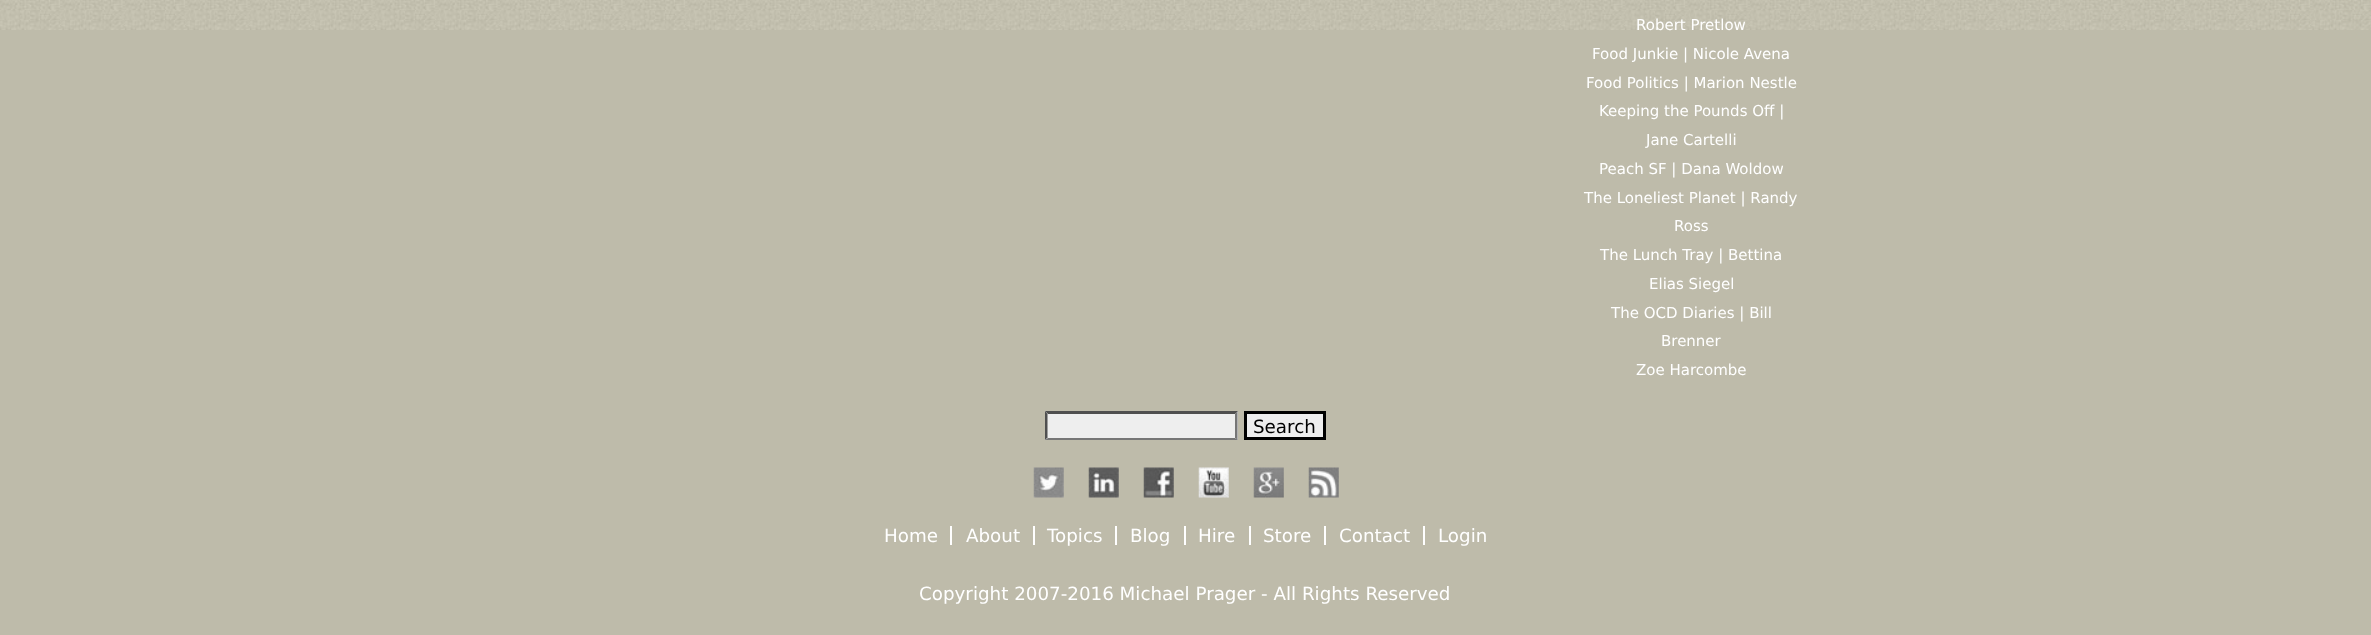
<!DOCTYPE html>
<meta charset="utf-8">
<style>body { margin: 0 } canvas { display: block }</style>
<canvas id="canvas" width="2371" height="635"></canvas>
<script type="module">
  const canvas = document.getElementById("canvas");
  const g = canvas.getContext("2d");
  g.miterLimit = 4;
  g.fontKerning = "normal";
  function drawText(s, x, y, [font, color]) {
    g.font = font;
    g.fillStyle = color;
    g.fillText(s, x, y);
  }
  function fillBox(x, y, w, h, color) {
    g.fillStyle = color;
    g.fillRect(x, y, w, h);
  }
  async function drawPicture(src, x, y, w, h) {
    const img = new Image();
    img.src = src;
    await img.decode();
    g.drawImage(img, x, y, w, h);
  }

  const s1 = ["15px DejaVu Sans", "#FFFFFF"];
  const s2 = ["18.3px DejaVu Sans", "#000000"];
  const s3 = ["18.3px DejaVu Sans", "#FFFFFF"];

  fillBox(0, 0, 2371, 635, "#BEBBAA");
  await drawPicture("pic1.png", 0, 0, 2371, 30);
  drawText("Robert Pretlow", 1636, 30, s1);
  drawText("Food Junkie | Nicole Avena", 1592, 59, s1);
  drawText("Food Politics | Marion Nestle", 1586, 88, s1);
  drawText("Keeping the Pounds Off |", 1599, 116, s1);
  drawText("Jane Cartelli", 1646, 145, s1);
  drawText("Peach SF | Dana Woldow", 1599, 174, s1);
  drawText("The Loneliest Planet | Randy", 1584, 203, s1);
  drawText("Ross", 1674, 231, s1);
  drawText("The Lunch Tray | Bettina", 1600, 260, s1);
  drawText("Elias Siegel", 1649, 289, s1);
  drawText("The OCD Diaries | Bill", 1611, 318, s1);
  drawText("Brenner", 1661, 346, s1);
  drawText("Zoe Harcombe", 1636, 375, s1);
  fillBox(1045, 411, 193, 29, "#EEEEEE");
  g.fillStyle = "#4F4F4F";
  g.beginPath();
  g.moveTo(1045, 411);
  g.lineTo(1238, 411);
  g.lineTo(1235, 414);
  g.lineTo(1048, 414);
  g.closePath();
  g.fill();
  g.fillStyle = "#767676";
  g.beginPath();
  g.moveTo(1237.5, 411);
  g.lineTo(1237.5, 440);
  g.lineTo(1235, 437.5);
  g.lineTo(1235, 414);
  g.closePath();
  g.fill();
  g.beginPath();
  g.moveTo(1238, 440);
  g.lineTo(1045, 440);
  g.lineTo(1048, 438);
  g.lineTo(1235, 438);
  g.closePath();
  g.fill();
  g.fillStyle = "#4F4F4F";
  g.beginPath();
  g.moveTo(1045, 440);
  g.lineTo(1045, 411);
  g.lineTo(1047.5, 414);
  g.lineTo(1047.5, 437.5);
  g.closePath();
  g.fill();
  g.fillStyle = "#EEEEEE";
  g.beginPath();
  g.rect(1245.5, 412.5, 79, 26);
  g.fill();
  g.strokeStyle = "#000000";
  g.lineWidth = 3;
  g.stroke();
  drawText("Search", 1253, 433, s2);
  await drawPicture("pic2.png", 1033, 467, 31, 31);
  await drawPicture("pic3.png", 1088, 467, 31, 31);
  await drawPicture("pic4.png", 1143, 467, 31, 31);
  await drawPicture("pic5.png", 1198, 467, 31, 31);
  await drawPicture("pic6.png", 1253, 467, 31, 31);
  await drawPicture("pic7.png", 1308, 467, 31, 31);
  fillBox(950, 526, 2, 19, "#FFFFFF");
  drawText("Home", 884, 542, s3);
  fillBox(1033, 526, 2, 19, "#FFFFFF");
  drawText("About", 966, 542, s3);
  fillBox(1115, 526, 2, 19, "#FFFFFF");
  drawText("Topics", 1047, 542, s3);
  fillBox(1184, 526, 2, 19, "#FFFFFF");
  drawText("Blog", 1130, 542, s3);
  fillBox(1249, 526, 2, 19, "#FFFFFF");
  drawText("Hire", 1198, 542, s3);
  fillBox(1324, 526, 2, 19, "#FFFFFF");
  drawText("Store", 1263, 542, s3);
  fillBox(1423, 526, 2, 19, "#FFFFFF");
  drawText("Contact", 1339, 542, s3);
  drawText("Login", 1438, 542, s3);
  drawText("Copyright 2007-2016 Michael Prager - All Rights Reserved", 919, 600, s3);
</script>
